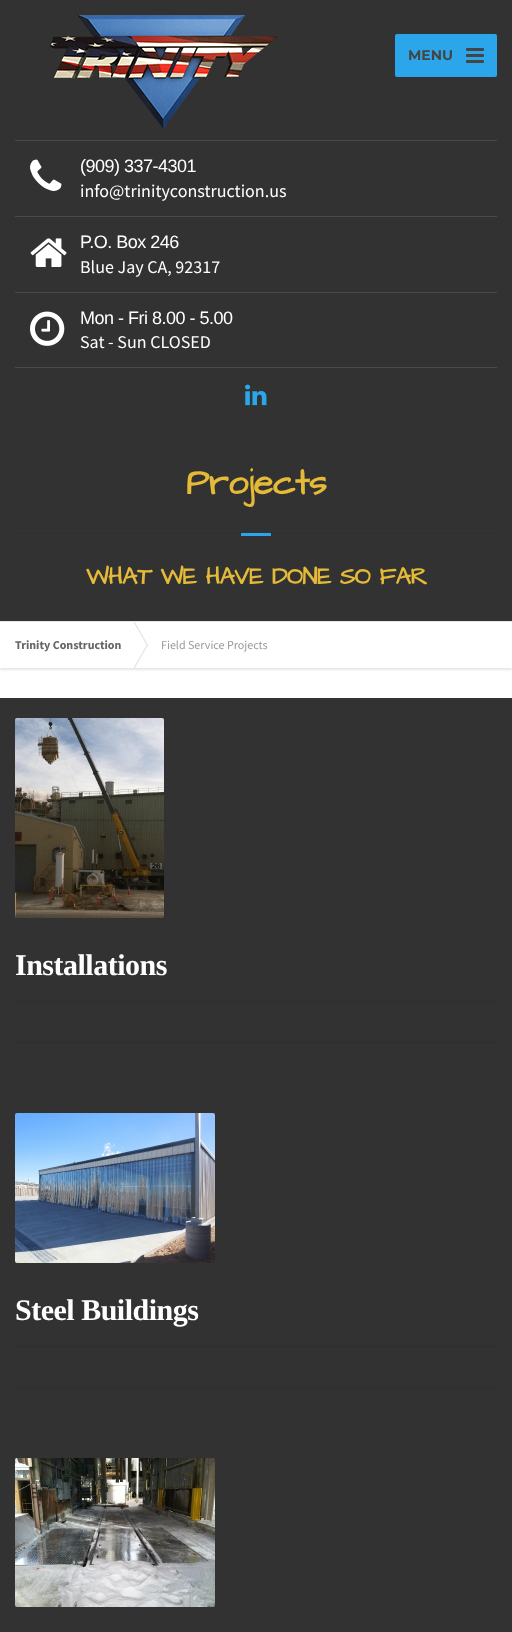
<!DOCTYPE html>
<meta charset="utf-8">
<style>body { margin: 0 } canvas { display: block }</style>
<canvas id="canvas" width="512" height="1632"></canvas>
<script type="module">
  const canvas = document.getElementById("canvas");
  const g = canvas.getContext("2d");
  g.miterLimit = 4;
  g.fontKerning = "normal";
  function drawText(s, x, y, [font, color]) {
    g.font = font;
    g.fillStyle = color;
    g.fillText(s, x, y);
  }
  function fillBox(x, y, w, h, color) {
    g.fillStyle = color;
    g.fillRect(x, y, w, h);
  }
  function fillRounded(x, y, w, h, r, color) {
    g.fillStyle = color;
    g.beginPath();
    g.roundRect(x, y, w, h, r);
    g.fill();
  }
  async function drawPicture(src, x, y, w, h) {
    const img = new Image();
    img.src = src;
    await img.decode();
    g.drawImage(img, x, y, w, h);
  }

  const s1 = ["100 14px Montserrat", "#454545"];
  const s2 = ["18px Liberation Sans", "#FFFFFF"];
  const s3 = ["18px Source Sans Pro", "#FFFFFF"];
  const s4 = ["bold 36px Architects Daughter", "#E5BA38"];
  const s5 = ["bold 24px Architects Daughter", "#E5BA38"];
  const s6 = ["bold 12px Source Sans Pro", "#666666"];
  const s7 = ["12px Source Sans Pro", "#999999"];
  const s8 = ["bold 30px Liberation Serif", "#FFFFFF"];

  fillBox(0, 0, 512, 1632, "#FFFFFF");
  fillBox(0, 0, 512, 621, "#323232");
  await drawPicture("pic1.png", 50, 15, 228, 113);
  fillRounded(395, 34, 102, 43, 2, "#2BA6EA");
  drawText("MENU", 408, 60, s1);
  fillRounded(466, 48, 18, 3, 1, "#454545");
  fillRounded(466, 54, 18, 3, 1, "#454545");
  fillRounded(466, 60, 18, 3, 1, "#454545");
  fillBox(15, 140, 482, 1, "#4A4A4A");
  fillBox(15, 216, 482, 1, "#4A4A4A");
  await drawPicture("pic2.png", 30, 159, 32, 32);
  g.letterSpacing = "-0.5px";
  drawText("(909) 337-4301", 80, 172, s2);
  g.letterSpacing = "0px";
  drawText("info@trinityconstruction.us", 80, 197, s3);
  fillBox(15, 292, 482, 1, "#4A4A4A");
  await drawPicture("pic3.png", 30, 238, 37, 29);
  g.letterSpacing = "-0.5px";
  drawText("P.O. Box 246", 80, 248, s2);
  g.letterSpacing = "0px";
  drawText("Blue Jay CA, 92317", 80, 273, s3);
  fillBox(15, 367, 482, 1, "#4A4A4A");
  await drawPicture("pic4.png", 30, 311, 35, 35);
  g.letterSpacing = "-0.5px";
  drawText("Mon - Fri 8.00 - 5.00", 80, 324, s2);
  g.letterSpacing = "0px";
  drawText("Sat - Sun CLOSED", 80, 348, s3);
  await drawPicture("pic5.png", 245, 384, 22, 22);
  fillBox(0, 621, 512, 1, "#E6E6E6");
  g.letterSpacing = "-0.5px";
  drawText("Projects", 186, 494, s4);
  fillBox(15, 533, 482, 1, "#2F2F2F");
  fillBox(241, 533, 30, 3, "#2BA6EA");
  drawText("WHAT WE HAVE DONE SO FAR", 86, 584, s5);
  g.save();
  g.beginPath();
  g.rect(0, 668, 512, 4);
  g.clip();
  g.fillStyle = "#E6E6E6";
  g.filter = "blur(1px)";
  g.beginPath();
  g.rect(0, 624, 512, 46);
  g.fill();
  g.filter = "none";
  g.restore();
  g.letterSpacing = "0px";
  drawText("Trinity Construction", 15, 649, s6);
  g.fillStyle = "#E2E2E2";
  g.beginPath();
  g.moveTo(133.5, 622);
  g.lineTo(134.5, 621.5);
  g.lineTo(148, 645);
  g.lineTo(147, 645.5);
  g.closePath();
  g.fill();
  g.beginPath();
  g.moveTo(147, 644.5);
  g.lineTo(148, 645);
  g.lineTo(134.5, 668.5);
  g.lineTo(133.5, 668);
  g.closePath();
  g.fill();
  drawText("Field Service Projects", 161, 649, s7);
  fillBox(0, 698, 512, 934, "#323232");
  fillBox(15, 1042, 482, 1, "#2E2E2E");
  await drawPicture("pic6.png", 15, 718, 149, 200);
  fillBox(15, 1001, 482, 1, "#2E2E2E");
  g.letterSpacing = "-0.5px";
  drawText("Installations", 15, 975, s8);
  fillBox(15, 1387, 482, 1, "#2E2E2E");
  await drawPicture("pic7.png", 15, 1113, 200, 150);
  fillBox(15, 1346, 482, 1, "#2E2E2E");
  drawText("Steel Buildings", 15, 1320, s8);
  await drawPicture("pic8.png", 15, 1458, 200, 149);
</script>
